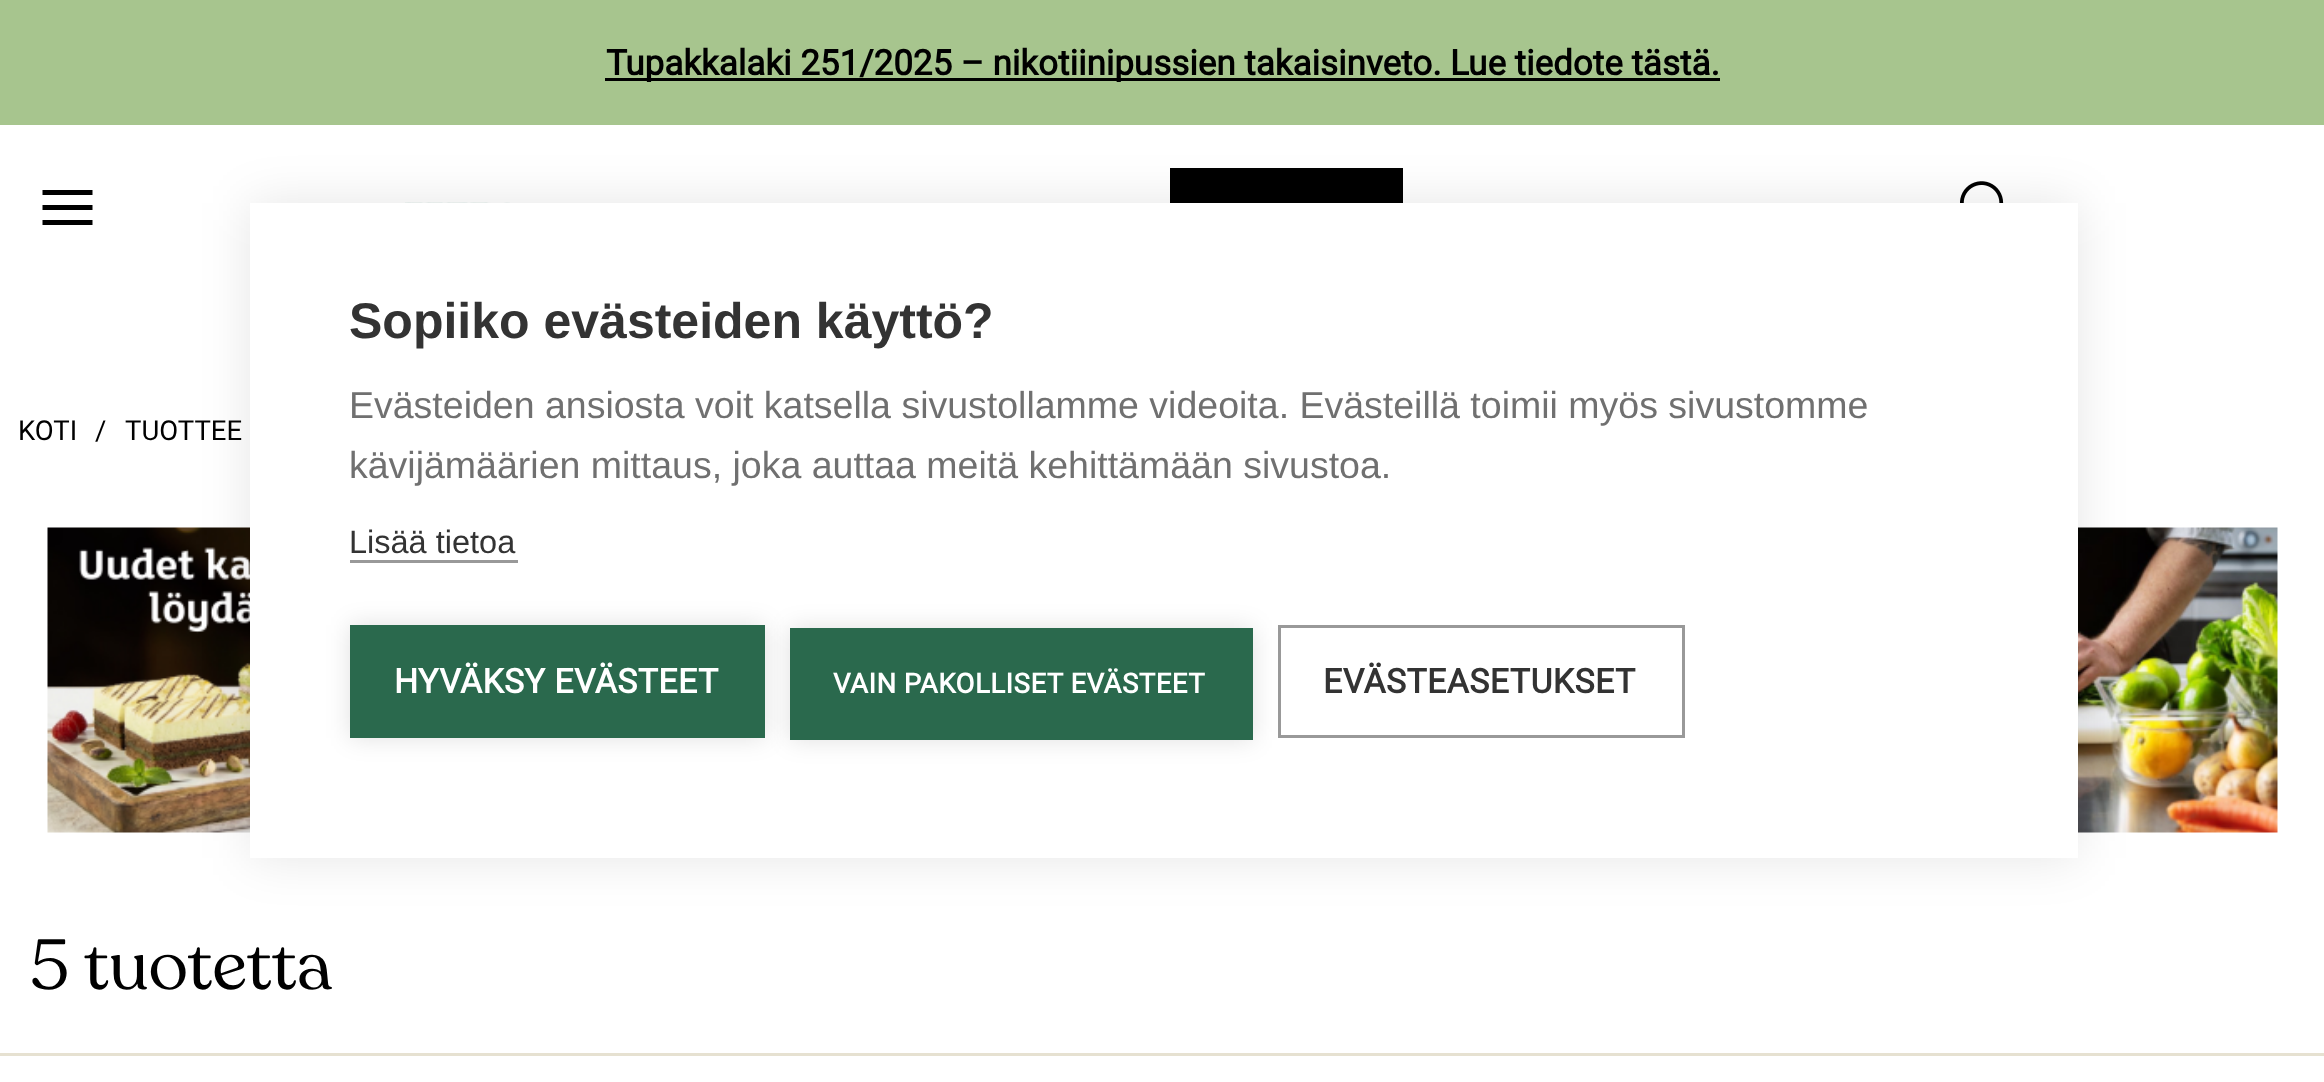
<!DOCTYPE html>
<meta charset="utf-8">
<style>body { margin: 0 } canvas { display: block }</style>
<canvas id="canvas" width="2324" height="1082"></canvas>
<script type="module">
  const canvas = document.getElementById("canvas");
  const g = canvas.getContext("2d");
  g.miterLimit = 4;
  g.fontKerning = "normal";
  function drawText(s, x, y, [font, color]) {
    g.font = font;
    g.fillStyle = color;
    g.fillText(s, x, y);
  }
  function fillBox(x, y, w, h, color) {
    g.fillStyle = color;
    g.fillRect(x, y, w, h);
  }
  async function drawPicture(src, x, y, w, h) {
    const img = new Image();
    img.src = src;
    await img.decode();
    g.drawImage(img, x, y, w, h);
  }

  const s1 = ["bold 35px Roboto", "#000000"];
  const s2 = ["27.5px Roboto", "#000000"];
  const s3 = ["70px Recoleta", "#000000"];
  const s4 = ["bold 50px Liberation Sans", "#333333"];
  const s5 = ["37.5px Liberation Sans", "#707070"];
  const s6 = ["32.5px Liberation Sans", "#333333"];
  const s7 = ["bold 33.75px Roboto", "#FFFFFF"];
  const s8 = ["bold 27.5px Roboto", "#FFFFFF"];
  const s9 = ["bold 33.75px Roboto", "#333333"];

  fillBox(0, 0, 2324, 1082, "#FFFFFF");
  fillBox(0, 0, 2324, 125, "#A7C58E");
  fillBox(605, 78, 1115, 3, "#000000");
  drawText("Tupakkalaki 251/2025 – nikotiinipussien takaisinveto. Lue tiedote tästä.", 606, 75, s1);
  fillBox(1170, 168, 233, 35, "#000000");
  await drawPicture("pic1.png", 1960, 181, 44, 22);
  await drawPicture("pic2.png", 42, 190, 51, 35);
  await drawPicture("pic3.png", 405, 202, 105, 1);
  drawText("KOTI", 18, 440, s2);
  drawText("/", 95, 440, s2);
  drawText("TUOTTEE", 125, 440, s2);
  await drawPicture("pic4.png", 47, 527, 203, 306);
  await drawPicture("pic5.png", 2078, 527, 200, 306);
  drawText("5", 30, 989, s3);
  drawText("tuotetta", 84, 989, s3);
  fillBox(0, 1053, 2324, 3, "#E6E1D1");
  g.fillStyle = "rgba(0, 0, 0, 0.1)";
  g.filter = "blur(25px)";
  g.beginPath();
  g.rect(250, 203, 1828, 655);
  g.fill();
  g.filter = "none";
  fillBox(250, 203, 1828, 655, "#FFFFFF");
  drawText("Sopiiko evästeiden käyttö?", 349, 338, s4);
  drawText("Evästeiden ansiosta voit katsella sivustollamme videoita. Evästeillä toimii myös sivustomme", 349, 418, s5);
  drawText("kävijämäärien mittaus, joka auttaa meitä kehittämään sivustoa.", 349, 478, s5);
  drawText("Lisää tietoa", 349, 553, s6);
  fillBox(350, 560, 168, 3, "#999999");
  g.fillStyle = "rgba(0, 0, 0, 0.12)";
  g.filter = "blur(12.5px)";
  g.beginPath();
  g.rect(350, 625, 415, 113);
  g.fill();
  g.filter = "none";
  fillBox(350, 625, 415, 113, "#2A694D");
  g.letterSpacing = "0.5px";
  drawText("HYVÄKSY EVÄSTEET", 394, 693, s7);
  g.fillStyle = "rgba(0, 0, 0, 0.12)";
  g.filter = "blur(12.5px)";
  g.beginPath();
  g.rect(790, 628, 463, 112);
  g.fill();
  g.filter = "none";
  fillBox(790, 628, 463, 112, "#2A694D");
  drawText("VAIN PAKOLLISET EVÄSTEET", 833, 693, s8);
  g.strokeStyle = "#999999";
  g.lineWidth = 3;
  g.strokeRect(1279.5, 626.5, 404, 110);
  drawText("EVÄSTEASETUKSET", 1323, 693, s9);
</script>
